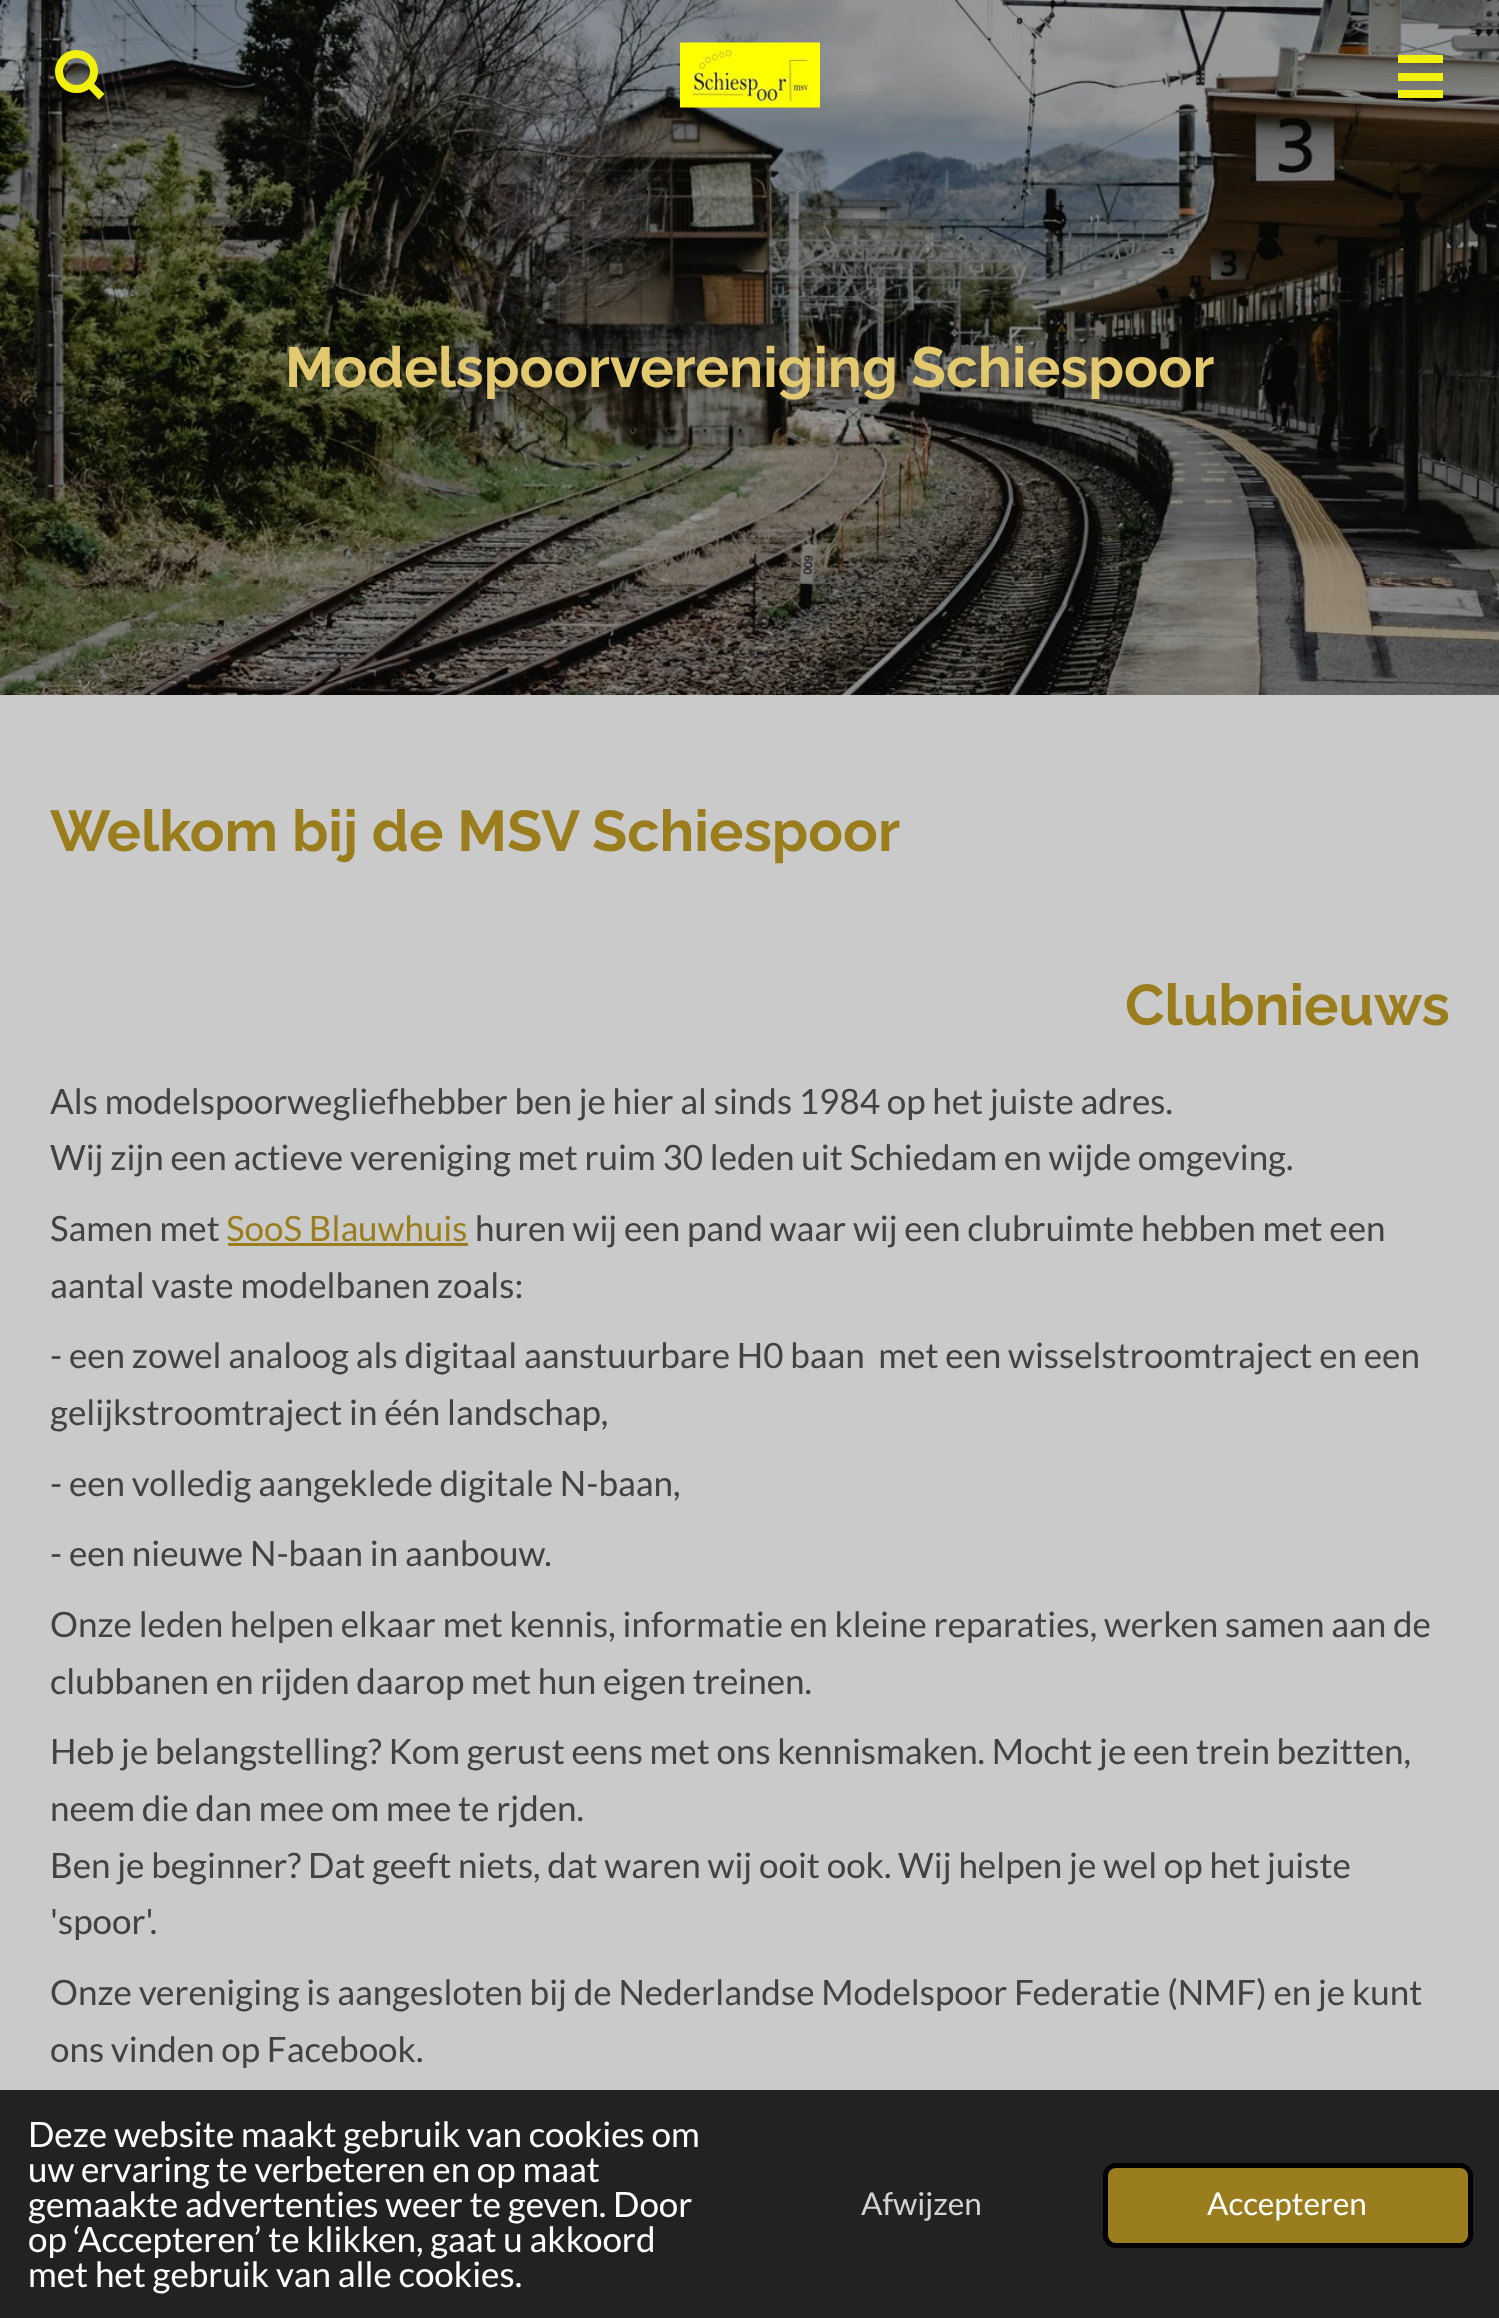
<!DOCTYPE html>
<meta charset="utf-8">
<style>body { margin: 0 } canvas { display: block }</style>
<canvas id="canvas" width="1499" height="2318"></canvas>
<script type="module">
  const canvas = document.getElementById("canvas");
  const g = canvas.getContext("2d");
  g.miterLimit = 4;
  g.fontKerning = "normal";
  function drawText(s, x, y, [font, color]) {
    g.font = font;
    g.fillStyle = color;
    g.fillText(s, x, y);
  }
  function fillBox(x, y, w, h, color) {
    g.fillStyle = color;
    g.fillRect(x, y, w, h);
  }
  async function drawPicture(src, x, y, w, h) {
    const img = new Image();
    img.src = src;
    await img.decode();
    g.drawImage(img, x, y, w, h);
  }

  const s1 = ["bold 56.5px Raleway", "#E2C86F"];
  const s2 = ["bold 57.5px Raleway", "#9A7E1E"];
  const s3 = ["35px Lato", "#424242"];
  const s4 = ["35px Lato", "#9A7E1E"];
  const s5 = ["35px Lato", "#FFFFFF"];
  const s6 = ["31.5px Lato", "#D3D3D3"];
  const s7 = ["31.5px Lato", "#FFFFFF"];

  fillBox(0, 0, 1499, 2318, "#CACACA");
  await drawPicture("pic2.png", 0, 0, 1499, 695);
  g.beginPath();
  g.arc(76.5, 71.5, 17.5, 0, Math.PI * 2);
  g.strokeStyle = "#F2F10D";
  g.lineWidth = 8;
  g.stroke();
  g.fillStyle = "#F2F10D";
  g.beginPath();
  g.moveTo(88.5, 78.5);
  g.lineTo(104.5, 94);
  g.lineTo(99, 99.5);
  g.lineTo(83.5, 83.5);
  g.closePath();
  g.fill();
  await drawPicture("pic1.png", 680, 42, 140, 66);
  fillBox(1398, 73, 45, 8, "#F2F10D");
  fillBox(1398, 55, 45, 8, "#F2F10D");
  fillBox(1398, 90, 45, 8, "#F2F10D");
  drawText("Modelspoorvereniging Schiespoor", 285, 387, s1);
  drawText("Welkom bij de MSV Schiespoor", 50, 851, s2);
  drawText("Clubnieuws", 1125, 1025, s2);
  drawText("Als modelspoorwegliefhebber ben je hier al sinds 1984 op het juiste adres.", 50, 1114, s3);
  drawText("Wij zijn een actieve vereniging met ruim 30 leden uit Schiedam en wijde omgeving.", 50, 1170, s3);
  drawText("Samen met", 50, 1241, s3);
  drawText("SooS Blauwhuis", 226, 1241, s4);
  fillBox(228, 1243, 240, 3, "#9A7E1E");
  drawText("huren wij een pand waar wij een clubruimte hebben met een", 475, 1241, s3);
  drawText("aantal vaste modelbanen zoals:", 50, 1298, s3);
  drawText("- een zowel analoog als digitaal aanstuurbare H0 baan  met een wisselstroomtraject en een", 50, 1368, s3);
  drawText("gelijkstroomtraject in één landschap,", 50, 1425, s3);
  drawText("- een volledig aangeklede digitale N-baan,", 50, 1496, s3);
  drawText("- een nieuwe N-baan in aanbouw.", 50, 1566, s3);
  drawText("Onze leden helpen elkaar met kennis, informatie en kleine reparaties, werken samen aan de", 50, 1637, s3);
  drawText("clubbanen en rijden daarop met hun eigen treinen.", 50, 1694, s3);
  drawText("Heb je belangstelling? Kom gerust eens met ons kennismaken. Mocht je een trein bezitten,", 50, 1764, s3);
  drawText("neem die dan mee om mee te rjden.", 50, 1821, s3);
  drawText("Ben je beginner? Dat geeft niets, dat waren wij ooit ook. Wij helpen je wel op het juiste", 50, 1878, s3);
  drawText("'spoor'.", 50, 1934, s3);
  drawText("Onze vereniging is aangesloten bij de Nederlandse Modelspoor Federatie (NMF) en je kunt", 50, 2005, s3);
  drawText("ons vinden op Facebook.", 50, 2062, s3);
  fillBox(0, 2090, 1499, 228, "#222222");
  drawText("Deze website maakt gebruik van cookies om", 28, 2147, s5);
  drawText("uw ervaring te verbeteren en op maat", 28, 2182, s5);
  drawText("gemaakte advertenties weer te geven. Door", 28, 2217, s5);
  drawText("op ‘Accepteren’ te klikken, gaat u akkoord", 28, 2252, s5);
  drawText("met het gebruik van alle cookies.", 28, 2287, s5);
  drawText("Afwijzen", 861, 2215, s6);
  g.fillStyle = "#9A7E1E";
  g.beginPath();
  g.roundRect(1105.5, 2165.5, 365, 80, 10.5);
  g.fill();
  g.strokeStyle = "#000000";
  g.lineWidth = 5;
  g.stroke();
  drawText("Accepteren", 1207, 2215, s7);
</script>
